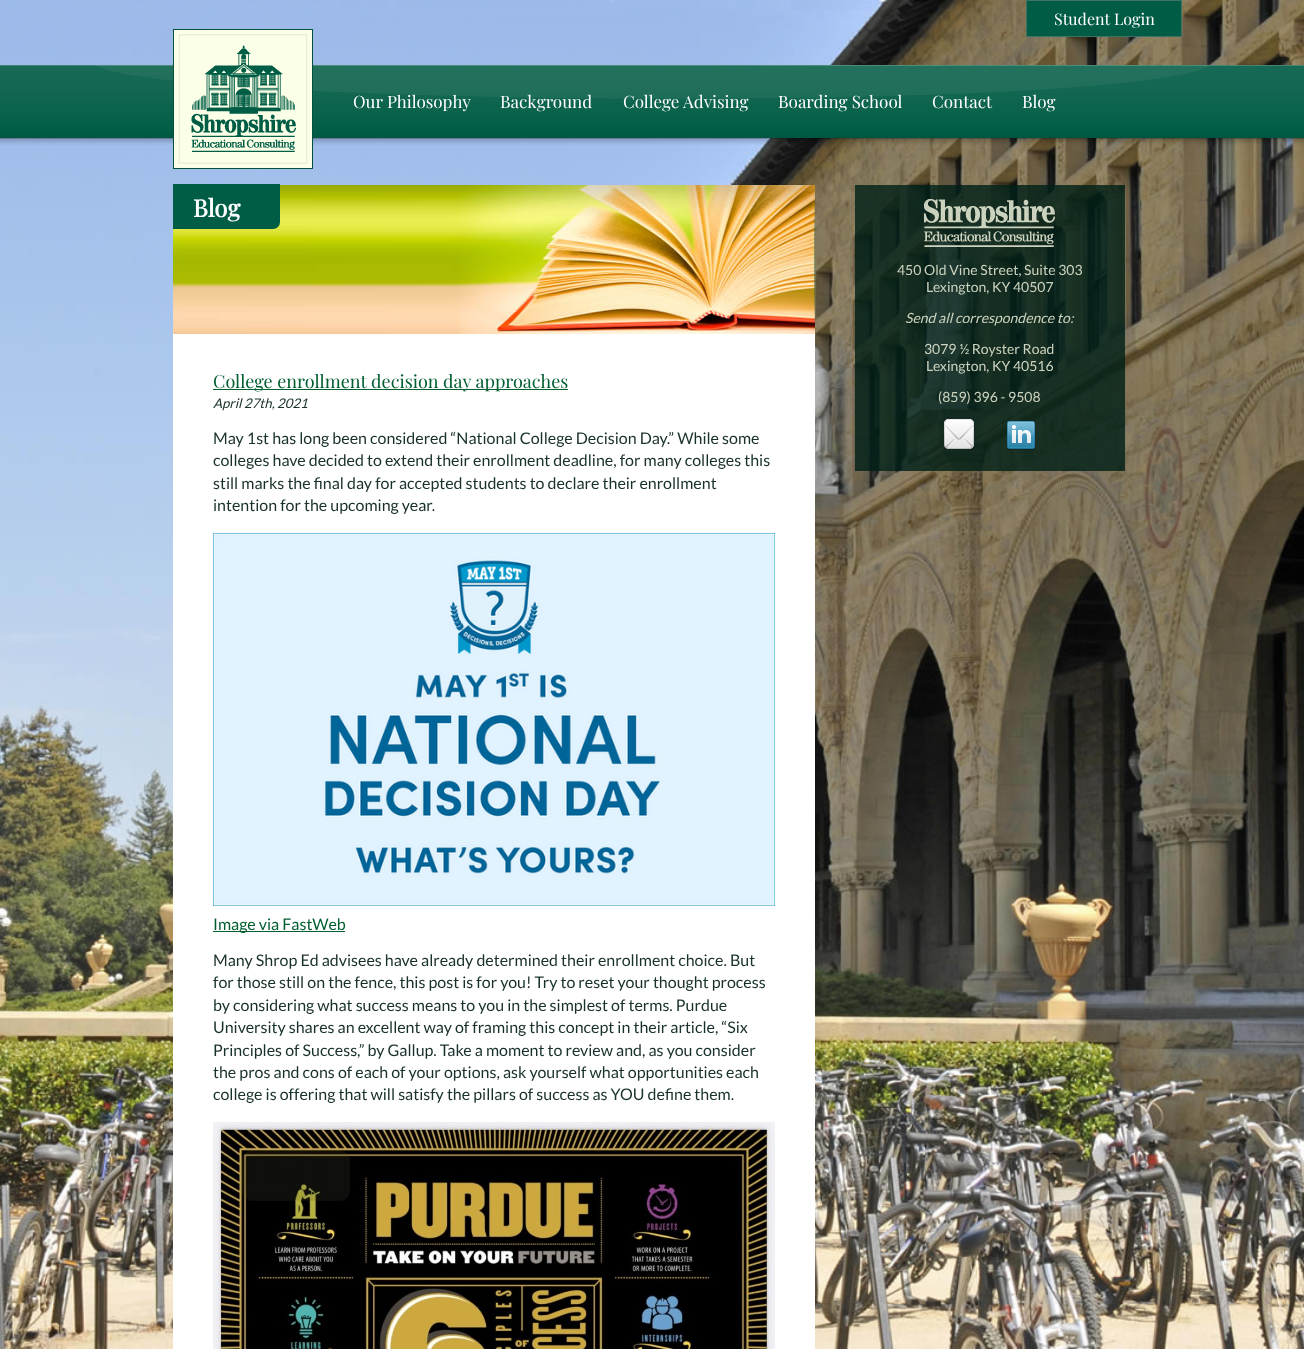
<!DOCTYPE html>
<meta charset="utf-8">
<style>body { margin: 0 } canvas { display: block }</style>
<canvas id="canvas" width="1304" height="1349"></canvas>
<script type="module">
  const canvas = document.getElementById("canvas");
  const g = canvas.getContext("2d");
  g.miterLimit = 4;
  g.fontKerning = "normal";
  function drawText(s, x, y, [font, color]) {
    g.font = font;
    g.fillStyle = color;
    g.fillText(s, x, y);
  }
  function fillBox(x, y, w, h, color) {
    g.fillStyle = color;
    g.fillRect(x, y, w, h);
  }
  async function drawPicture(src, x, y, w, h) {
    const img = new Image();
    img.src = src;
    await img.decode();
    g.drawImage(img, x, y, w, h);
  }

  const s1 = ["16px Playfair Display", "#FFFFFF"];
  const s2 = ["17px Playfair Display", "#FFFFFF"];
  const s3 = ["bold 24px Playfair Display", "#FFFFFF"];
  const s4 = ["18px Playfair Display", "#005E2F"];
  const s5 = ["italic 13.25px Lato", "#19312C"];
  const s6 = ["16px Lato", "#19312C"];
  const s7 = ["16px Lato", "#005E2F"];
  const s8 = ["14px Lato", "#CCD3BE"];
  const s9 = ["italic 14px Lato", "#CCD3BE"];

  fillBox(0, 0, 1304, 1349, "#FFFFFF");
  await drawPicture("pic1.png", 0, 0, 1304, 1349);
  g.fillStyle = "#005C44";
  g.beginPath();
  g.rect(1026.5, 0.5, 155, 36);
  g.fill();
  g.strokeStyle = "#3E7364";
  g.stroke();
  drawText("Student Login", 1054, 25, s1);
  await drawPicture("pic2.png", 0, 65, 1304, 80);
  await drawPicture("pic3.png", 96, 65, 1113, 34);
  await drawPicture("pic4.png", 173, 29, 140, 140);
  drawText("Our Philosophy", 353, 108, s2);
  drawText("Background", 500, 108, s2);
  drawText("College Advising", 623, 108, s2);
  drawText("Boarding School", 778, 108, s2);
  drawText("Contact", 932, 108, s2);
  drawText("Blog", 1022, 108, s2);
  fillBox(173, 334, 642, 1015, "#FFFFFF");
  await drawPicture("pic5.png", 173, 185, 642, 149);
  g.fillStyle = "#005D45";
  g.beginPath();
  g.roundRect(173, 184, 107, 45, [0, 0, 7, 0]);
  g.fill();
  drawText("Blog", 193, 217, s3);
  fillBox(213, 389, 355, 1, "#005E2F");
  drawText("College enrollment decision day approaches", 213, 388, s4);
  drawText("April 27th, 2021", 213, 408, s5);
  drawText("May 1st has long been considered “National College Decision Day.” While some", 213, 444, s6);
  drawText("colleges have decided to extend their enrollment deadline, for many colleges this", 213, 466, s6);
  drawText("still marks the final day for accepted students to declare their enrollment", 213, 489, s6);
  drawText("intention for the upcoming year.", 213, 511, s6);
  await drawPicture("pic6.png", 213, 533, 562, 373);
  fillBox(213, 931, 132, 1, "#005E2F");
  drawText("Image via FastWeb", 213, 930, s7);
  drawText("Many Shrop Ed advisees have already determined their enrollment choice. But", 213, 966, s6);
  drawText("for those still on the fence, this post is for you! Try to reset your thought process", 213, 988, s6);
  drawText("by considering what success means to you in the simplest of terms. Purdue", 213, 1011, s6);
  drawText("University shares an excellent way of framing this concept in their article, “Six", 213, 1033, s6);
  drawText("Principles of Success,” by Gallup. Take a moment to review and, as you consider", 213, 1056, s6);
  drawText("the pros and cons of each of your options, ask yourself what opportunities each", 213, 1078, s6);
  drawText("college is offering that will satisfy the pillars of success as YOU define them.", 213, 1100, s6);
  await drawPicture("pic7.png", 213, 1122, 562, 227);
  fillBox(855, 185, 270, 286, "rgba(0, 32, 23, 0.81)");
  await drawPicture("pic8.png", 924, 199, 131, 48);
  drawText("450 Old Vine Street, Suite 303", 897, 275, s8);
  drawText("Lexington, KY 40507", 926, 292, s8);
  drawText("Send all correspondence to:", 905, 323, s9);
  drawText("3079 ½ Royster Road", 924, 354, s8);
  drawText("Lexington, KY 40516", 926, 371, s8);
  drawText("(859) 396 - 9508", 938, 402, s8);
  await drawPicture("pic9.png", 944, 419, 30, 31);
  await drawPicture("pic10.png", 1007, 421, 28, 29);
</script>
